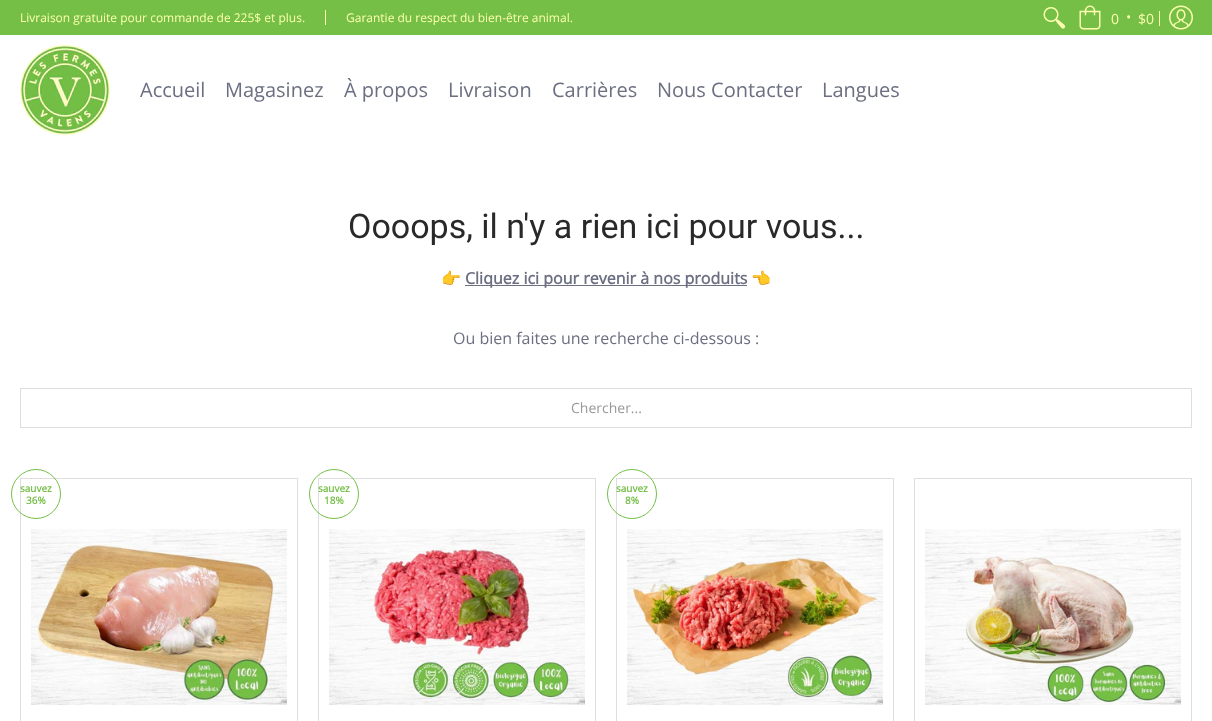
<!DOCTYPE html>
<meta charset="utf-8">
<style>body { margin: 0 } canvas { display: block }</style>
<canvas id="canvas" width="1212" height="721"></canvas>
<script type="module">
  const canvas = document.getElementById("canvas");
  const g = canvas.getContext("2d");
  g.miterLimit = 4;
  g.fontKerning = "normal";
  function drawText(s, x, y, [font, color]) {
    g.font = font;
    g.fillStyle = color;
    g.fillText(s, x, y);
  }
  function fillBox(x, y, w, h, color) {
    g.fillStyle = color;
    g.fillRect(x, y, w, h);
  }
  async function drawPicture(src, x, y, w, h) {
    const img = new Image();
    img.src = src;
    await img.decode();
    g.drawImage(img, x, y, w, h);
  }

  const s1 = ["12px Open Sans", "#FDFFAE"];
  const s2 = ["14px Open Sans", "#FDFFAE"];
  const s3 = ["20px Open Sans", "#6B6F81"];
  const s4 = ["34px Roboto", "#292929"];
  const s5 = ["bold 16px Noto Color Emoji", "#6B6F81"];
  const s6 = ["bold 16px Open Sans", "#6B6F81"];
  const s7 = ["16px Open Sans", "#6B6F81"];
  const s8 = ["14px Open Sans", "#989898"];
  const s9 = ["bold 10px Open Sans", "#75BF47"];

  fillBox(0, 0, 1212, 721, "#FFFFFF");
  fillBox(0, 0, 1212, 35, "#75BF47");
  drawText("Livraison gratuite pour commande de 225$ et plus.", 20, 22, s1);
  fillBox(325, 10, 1, 15, "#FDFFAE");
  drawText("Garantie du respect du bien-être animal.", 346, 22, s1);
  await drawPicture("pic1.png", 1043, 7, 23, 22);
  await drawPicture("pic2.png", 1079, 5, 22, 25);
  drawText("0", 1111, 24, s2);
  drawText("•", 1126, 22, s2);
  drawText("$0", 1138, 24, s2);
  fillBox(1159, 11, 1, 15, "#FDFFAE");
  await drawPicture("pic3.png", 1169, 5, 24, 25);
  await drawPicture("pic4.png", 20, 45, 90, 90);
  drawText("Accueil", 140, 97, s3);
  drawText("Magasinez", 225, 97, s3);
  drawText("À propos", 344, 97, s3);
  drawText("Livraison", 448, 97, s3);
  drawText("Carrières", 552, 97, s3);
  drawText("Nous Contacter", 657, 97, s3);
  drawText("Langues", 822, 97, s3);
  drawText("Oooops, il n'y a rien ici pour vous...", 348, 238, s4);
  drawText("👉", 441, 284, s5);
  fillBox(465, 285, 282, 1, "#6B6F81");
  drawText("Cliquez ici pour revenir à nos produits", 465, 284, s6);
  drawText("👈", 751, 284, s5);
  drawText("Ou bien faites une recherche ci-dessous :", 453, 344, s7);
  g.strokeStyle = "#DEDEDE";
  g.strokeRect(20.5, 388.5, 1171, 39);
  drawText("Chercher...", 571, 413, s8);
  g.strokeRect(20.5, 478.5, 277, 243);
  g.beginPath();
  g.arc(36, 494, 24.5, 0, Math.PI * 2);
  g.strokeStyle = "#75BF47";
  g.stroke();
  drawText("sauvez", 20, 492, s9);
  drawText("36%", 26, 504, s9);
  await drawPicture("pic5.png", 31, 529, 256, 176);
  g.strokeStyle = "#DEDEDE";
  g.strokeRect(318.5, 478.5, 277, 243);
  g.beginPath();
  g.arc(334, 494, 24.5, 0, Math.PI * 2);
  g.strokeStyle = "#75BF47";
  g.stroke();
  drawText("sauvez", 318, 492, s9);
  drawText("18%", 324, 504, s9);
  await drawPicture("pic6.png", 329, 529, 256, 176);
  g.strokeStyle = "#DEDEDE";
  g.strokeRect(616.5, 478.5, 277, 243);
  g.beginPath();
  g.arc(632, 494, 24.5, 0, Math.PI * 2);
  g.strokeStyle = "#75BF47";
  g.stroke();
  drawText("sauvez", 616, 492, s9);
  drawText("8%", 625, 504, s9);
  await drawPicture("pic7.png", 627, 529, 256, 176);
  g.strokeStyle = "#DEDEDE";
  g.strokeRect(914.5, 478.5, 277, 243);
  await drawPicture("pic8.png", 925, 529, 256, 176);
</script>
